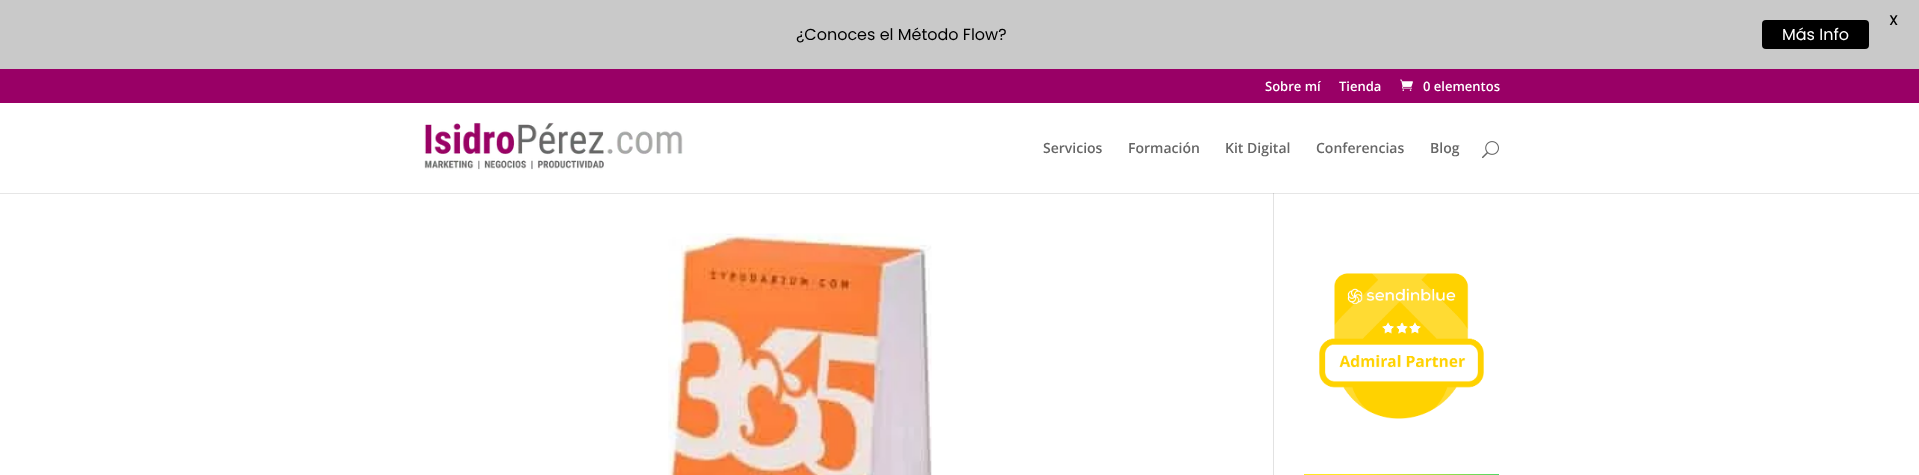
<!DOCTYPE html>
<meta charset="utf-8">
<style>body { margin: 0 } canvas { display: block }</style>
<canvas id="canvas" width="1919" height="475"></canvas>
<script type="module">
  const canvas = document.getElementById("canvas");
  const g = canvas.getContext("2d");
  g.miterLimit = 4;
  g.fontKerning = "normal";
  function drawText(s, x, y, [font, color]) {
    g.font = font;
    g.fillStyle = color;
    g.fillText(s, x, y);
  }
  function fillBox(x, y, w, h, color) {
    g.fillStyle = color;
    g.fillRect(x, y, w, h);
  }
  function fillRounded(x, y, w, h, r, color) {
    g.fillStyle = color;
    g.beginPath();
    g.roundRect(x, y, w, h, r);
    g.fill();
  }
  async function drawPicture(src, x, y, w, h) {
    const img = new Image();
    img.src = src;
    await img.decode();
    g.drawImage(img, x, y, w, h);
  }

  const s1 = ["500 14px Poppins", "#000000"];
  const s2 = ["16px Poppins", "#000000"];
  const s3 = ["16px Poppins", "#FFFFFF"];
  const s4 = ["600 13px Open Sans", "#FFFFFF"];
  const s5 = ["600 14px Open Sans", "#666666"];

  fillBox(0, 0, 1919, 475, "#FFFFFF");
  fillBox(0, 193, 1919, 1, "#E6E6E6");
  fillBox(0, 0, 1919, 69, "#C9C9C9");
  drawText("X", 1889, 25, s1);
  drawText("¿Conoces el Método Flow?", 796, 40, s2);
  fillRounded(1762, 20, 107, 29, 4, "#000000");
  drawText("Más Info", 1782, 40, s3);
  fillBox(0, 69, 1919, 34, "#990066");
  drawText("Sobre mí", 1265, 91, s4);
  drawText("Tienda", 1339, 91, s4);
  await drawPicture("pic1.png", 1400, 79, 13, 12);
  drawText("0 elementos", 1423, 91, s4);
  await drawPicture("pic2.png", 424, 122, 259, 48);
  drawText("Servicios", 1043, 153, s5);
  drawText("Formación", 1128, 153, s5);
  drawText("Kit Digital", 1225, 153, s5);
  drawText("Conferencias", 1316, 153, s5);
  drawText("Blog", 1430, 153, s5);
  await drawPicture("pic3.png", 1482, 141, 17, 18);
  fillBox(1273, 194, 1, 281, "#E2E2E2");
  fillBox(1273, 193, 1, 1, "#CBCBCB");
  await drawPicture("pic4.png", 668, 233, 264, 242);
  await drawPicture("pic5.png", 1319, 273, 165, 146);
  await drawPicture("pic6.png", 1304, 474, 195, 1);
</script>
